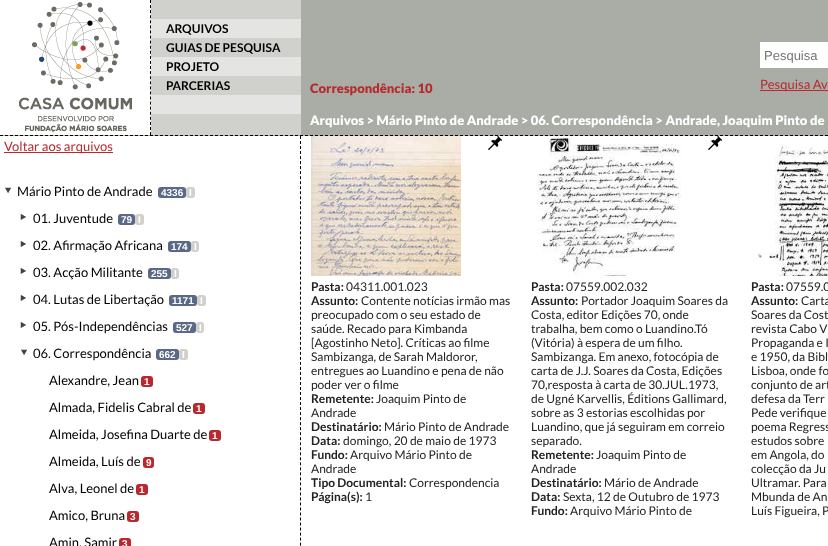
<!DOCTYPE html>
<meta charset="utf-8">
<style>body { margin: 0 } canvas { display: block }</style>
<canvas id="canvas" width="828" height="546"></canvas>
<script type="module">
  const canvas = document.getElementById("canvas");
  const g = canvas.getContext("2d");
  g.miterLimit = 4;
  g.fontKerning = "normal";
  function drawText(s, x, y, [font, color]) {
    g.font = font;
    g.fillStyle = color;
    g.fillText(s, x, y);
  }
  function fillBox(x, y, w, h, color) {
    g.fillStyle = color;
    g.fillRect(x, y, w, h);
  }
  function fillRounded(x, y, w, h, r, color) {
    g.fillStyle = color;
    g.beginPath();
    g.roundRect(x, y, w, h, r);
    g.fill();
  }
  async function drawPicture(src, x, y, w, h) {
    const img = new Image();
    img.src = src;
    await img.decode();
    g.drawImage(img, x, y, w, h);
  }

  const s1 = ["bold 12px Lato", "#000000"];
  const s2 = ["900 13px Lato", "#B8292F"];
  const s3 = ["13px Liberation Sans", "#757575"];
  const s4 = ["13px Lato", "#B8292F"];
  const s5 = ["900 13px Lato", "#FFFFFF"];
  const s6 = ["13px Lato", "#000000"];
  const s7 = ["bold 10px Liberation Sans", "#FFFFFF"];
  const s8 = ["bold 12px Lato", "#222222"];
  const s9 = ["12px Lato", "#222222"];

  fillBox(0, 0, 828, 546, "#FFFFFF");
  fillBox(3, 0, 825, 136, "#AAADA6");
  g.beginPath();
  g.moveTo(0, 135.5);
  g.lineTo(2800, 135.5);
  g.strokeStyle = "#000000";
  g.setLineDash([3, 2]);
  g.stroke();
  fillBox(3, 0, 148, 135, "#FFFFFF");
  g.beginPath();
  g.moveTo(150.5, 0);
  g.lineTo(150.5, 135);
  g.setLineDash([3, 2.08]);
  g.stroke();
  await drawPicture("pic1.png", 19, 2, 113, 131);
  fillBox(151, 0, 150, 135, "#D0D1CD");
  fillBox(151, 19, 150, 19, "#E4E5E2");
  drawText("ARQUIVOS", 166, 33, s1);
  drawText("GUIAS DE PESQUISA", 166, 52, s1);
  fillBox(151, 57, 150, 19, "#E4E5E2");
  drawText("PROJETO", 166, 71, s1);
  drawText("PARCERIAS", 166, 90, s1);
  fillBox(151, 95, 150, 19, "#E4E5E2");
  drawText("Correspondência: 10", 310, 93, s2);
  fillBox(760, 42, 68, 26, "#FFFFFF");
  drawText("Pesquisa", 764, 60, s3);
  fillBox(760, 90, 68, 1, "#B8292F");
  drawText("Pesquisa Av", 760, 89, s4);
  drawText("Arquivos > Mário Pinto de Andrade > 06. Correspondência > Andrade, Joaquim Pinto de", 310, 125, s5);
  g.beginPath();
  g.moveTo(300.5, 136);
  g.lineTo(300.5, 546);
  g.setLineDash([3, 2.02]);
  g.stroke();
  fillBox(4, 152, 109, 1, "#B8292F");
  drawText("Voltar aos arquivos", 4, 151, s4);
  await drawPicture("pic2.png", 5, 187, 6, 6);
  drawText("Mário Pinto de Andrade", 17, 196, s6);
  fillRounded(158, 187, 28, 11, 3, "#5A6986");
  drawText("4336", 161, 196, s7);
  fillRounded(186, 187, 9, 11, 3, "#D0D1CD");
  drawText("I", 189, 196, s7);
  await drawPicture("pic3.png", 20, 214, 6, 6);
  drawText("01. Juventude", 33, 223, s6);
  fillRounded(118, 214, 17, 11, 3, "#5A6986");
  drawText("79", 121, 223, s7);
  fillRounded(135, 214, 9, 11, 3, "#D0D1CD");
  drawText("I", 138, 223, s7);
  await drawPicture("pic3.png", 20, 241, 6, 6);
  drawText("02. Afirmação Africana", 33, 250, s6);
  fillRounded(168, 241, 23, 11, 3, "#5A6986");
  drawText("174", 171, 250, s7);
  fillRounded(191, 241, 8, 11, 3, "#D0D1CD");
  drawText("I", 194, 250, s7);
  await drawPicture("pic3.png", 20, 268, 6, 6);
  drawText("03. Acção Militante", 33, 277, s6);
  fillRounded(148, 268, 23, 11, 3, "#5A6986");
  drawText("255", 151, 277, s7);
  fillRounded(171, 268, 8, 11, 3, "#D0D1CD");
  drawText("I", 174, 277, s7);
  await drawPicture("pic3.png", 20, 295, 6, 6);
  drawText("04. Lutas de Libertação", 33, 304, s6);
  fillRounded(169, 295, 28, 11, 3, "#5A6986");
  drawText("1171", 172, 304, s7);
  fillRounded(197, 295, 9, 11, 3, "#D0D1CD");
  drawText("I", 200, 304, s7);
  await drawPicture("pic3.png", 20, 322, 6, 6);
  drawText("05. Pós-Independências", 33, 331, s6);
  fillRounded(173, 322, 23, 11, 3, "#5A6986");
  drawText("527", 176, 331, s7);
  fillRounded(196, 322, 8, 11, 3, "#D0D1CD");
  drawText("I", 199, 331, s7);
  await drawPicture("pic2.png", 21, 349, 6, 6);
  drawText("06. Correspondência", 33, 358, s6);
  fillRounded(156, 349, 23, 11, 3, "#5A6986");
  drawText("662", 159, 358, s7);
  fillRounded(179, 349, 9, 11, 3, "#D0D1CD");
  drawText("I", 182, 358, s7);
  drawText("Alexandre, Jean", 49, 385, s6);
  fillRounded(141, 376, 12, 11, 3, "#B8292F");
  drawText("1", 144, 385, s7);
  drawText("Almada, Fidelis Cabral de", 49, 412, s6);
  fillRounded(193, 403, 12, 11, 3, "#B8292F");
  drawText("1", 196, 412, s7);
  drawText("Almeida, Josefina Duarte de", 49, 439, s6);
  fillRounded(209, 430, 12, 11, 3, "#B8292F");
  drawText("1", 212, 439, s7);
  drawText("Almeida, Luís de", 49, 466, s6);
  fillRounded(143, 457, 11, 11, 3, "#B8292F");
  drawText("9", 146, 466, s7);
  drawText("Alva, Leonel de", 49, 493, s6);
  fillRounded(136, 484, 12, 11, 3, "#B8292F");
  drawText("1", 139, 493, s7);
  drawText("Amico, Bruna", 49, 520, s6);
  fillRounded(127, 511, 12, 11, 3, "#B8292F");
  drawText("3", 130, 520, s7);
  drawText("Amin, Samir", 49, 547, s6);
  g.fillStyle = "#B8292F";
  g.beginPath();
  g.roundRect(119, 538, 12, 8, [3, 3, 0, 0]);
  g.fill();
  drawText("3", 122, 547, s7);
  await drawPicture("pic4.png", 311, 136, 150, 140);
  await drawPicture("pic5.png", 488, 136, 14, 14);
  drawText("Pasta:", 311, 291, s8);
  drawText("04311.001.023", 346, 291, s9);
  drawText("Assunto:", 311, 305, s8);
  drawText("Contente notícias irmão mas", 361, 305, s9);
  drawText("preocupado com o seu estado de", 311, 319, s9);
  drawText("saúde. Recado para Kimbanda", 311, 333, s9);
  drawText("[Agostinho Neto]. Críticas ao filme", 311, 347, s9);
  drawText("Sambizanga, de Sarah Maldoror,", 311, 361, s9);
  drawText("entregues ao Luandino e pena de não", 311, 375, s9);
  drawText("poder ver o filme", 311, 389, s9);
  drawText("Remetente:", 311, 403, s8);
  drawText("Joaquim Pinto de", 376, 403, s9);
  drawText("Andrade", 311, 417, s9);
  drawText("Destinatário:", 311, 431, s8);
  drawText("Mário Pinto de Andrade", 384, 431, s9);
  drawText("Data:", 311, 445, s8);
  drawText("domingo, 20 de maio de 1973", 343, 445, s9);
  drawText("Fundo:", 311, 459, s8);
  drawText("Arquivo Mário Pinto de", 350, 459, s9);
  drawText("Andrade", 311, 473, s9);
  drawText("Tipo Documental:", 311, 487, s8);
  drawText("Correspondencia", 409, 487, s9);
  drawText("Página(s):", 311, 501, s8);
  drawText("1", 365, 501, s9);
  await drawPicture("pic6.png", 531, 136, 150, 140);
  await drawPicture("pic5.png", 708, 136, 14, 14);
  drawText("Pasta:", 531, 291, s8);
  drawText("07559.002.032", 566, 291, s9);
  drawText("Assunto:", 531, 305, s8);
  drawText("Portador Joaquim Soares da", 581, 305, s9);
  drawText("Costa, editor Edições 70, onde", 531, 319, s9);
  drawText("trabalha, bem como o Luandino.Tó", 531, 333, s9);
  drawText("(Vitória) à espera de um filho.", 531, 347, s9);
  drawText("Sambizanga. Em anexo, fotocópia de", 531, 361, s9);
  drawText("carta de J.J. Soares da Costa, Edições", 531, 375, s9);
  drawText("70,resposta à carta de 30.JUL.1973,", 531, 389, s9);
  drawText("de Ugné Karvellis, Éditions Gallimard,", 531, 403, s9);
  drawText("sobre as 3 estorias escolhidas por", 531, 417, s9);
  drawText("Luandino, que já seguiram em correio", 531, 431, s9);
  drawText("separado.", 531, 445, s9);
  drawText("Remetente:", 531, 459, s8);
  drawText("Joaquim Pinto de", 596, 459, s9);
  drawText("Andrade", 531, 473, s9);
  drawText("Destinatário:", 531, 487, s8);
  drawText("Mário de Andrade", 604, 487, s9);
  drawText("Data:", 531, 501, s8);
  drawText("Sexta, 12 de Outubro de 1973", 563, 501, s9);
  drawText("Fundo:", 531, 515, s8);
  drawText("Arquivo Mário Pinto de", 570, 515, s9);
  await drawPicture("pic7.png", 753, 136, 75, 140);
  drawText("Pasta:", 751, 291, s8);
  drawText("07559.0", 786, 291, s9);
  drawText("Assunto:", 751, 305, s8);
  drawText("Carta", 801, 305, s9);
  drawText("Soares da Cost", 751, 319, s9);
  drawText("revista Cabo V", 751, 333, s9);
  drawText("Propaganda e I", 751, 347, s9);
  drawText("e 1950, da Bibl", 751, 361, s9);
  drawText("Lisboa, onde fo", 751, 375, s9);
  drawText("conjunto de art", 751, 389, s9);
  drawText("defesa da Terr", 751, 403, s9);
  drawText("Pede verifique", 751, 417, s9);
  drawText("poema Regress", 751, 431, s9);
  drawText("estudos sobre", 751, 445, s9);
  drawText("em Angola, do", 751, 459, s9);
  drawText("colecção da Ju", 751, 473, s9);
  drawText("Ultramar. Para", 751, 487, s9);
  drawText("Mbunda de An", 751, 501, s9);
  drawText("Luís Figueira, P", 751, 515, s9);
</script>
